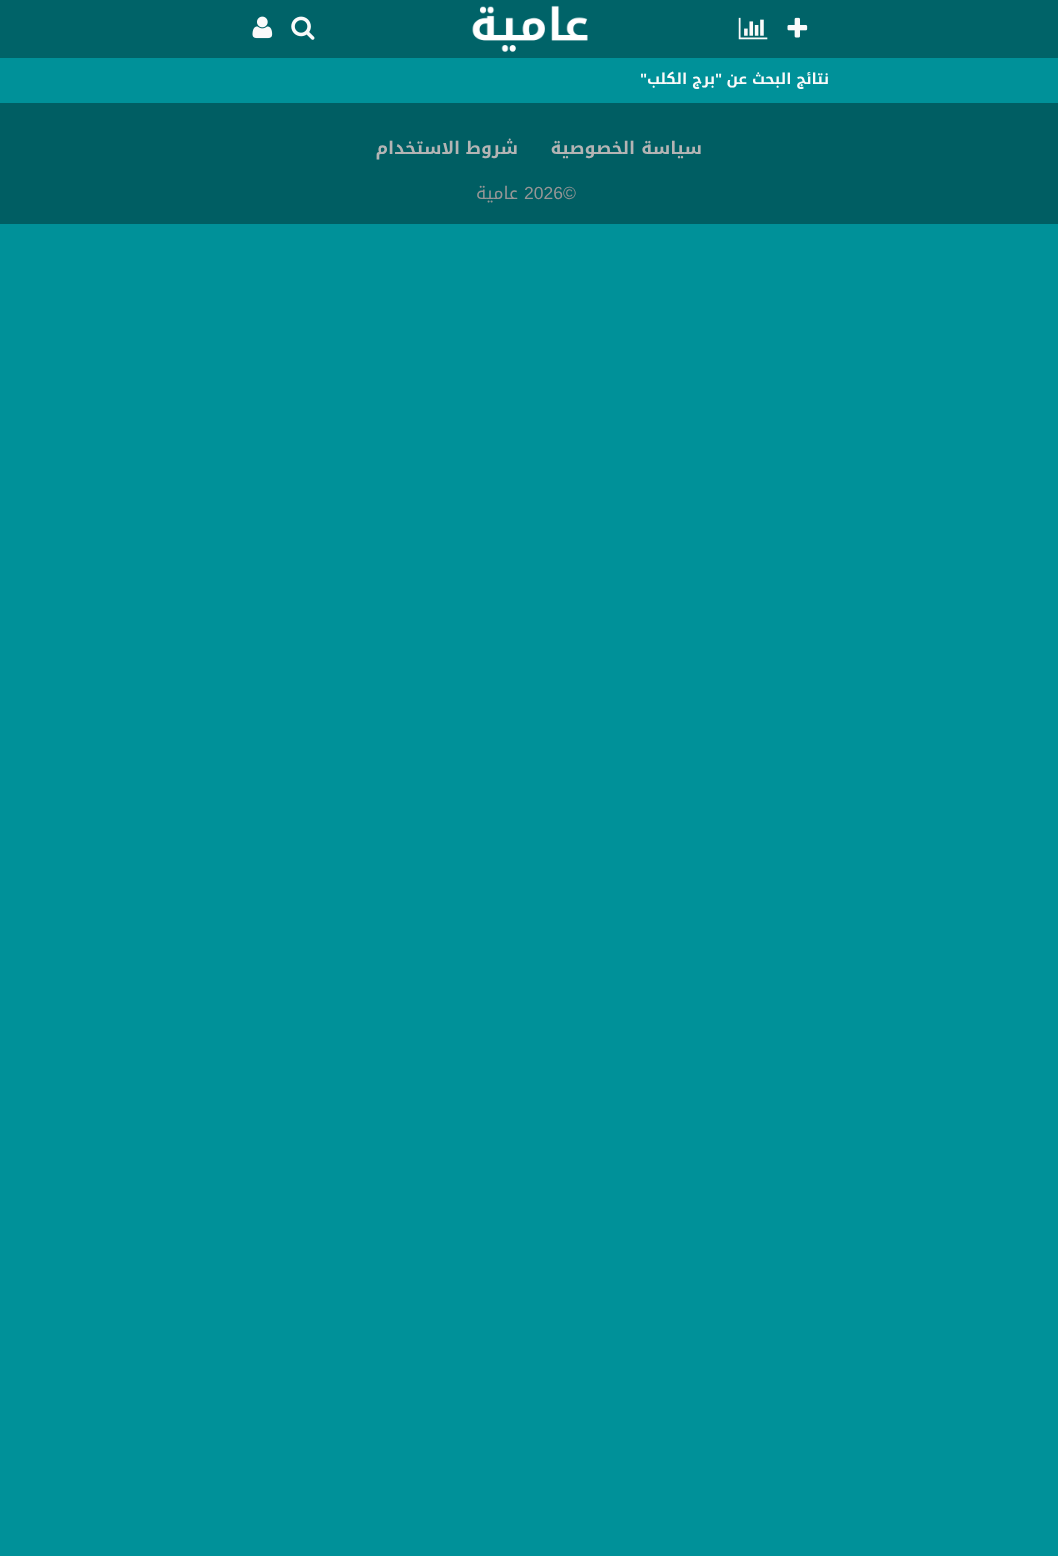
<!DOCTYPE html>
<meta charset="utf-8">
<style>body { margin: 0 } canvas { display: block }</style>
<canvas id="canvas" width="1058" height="1556"></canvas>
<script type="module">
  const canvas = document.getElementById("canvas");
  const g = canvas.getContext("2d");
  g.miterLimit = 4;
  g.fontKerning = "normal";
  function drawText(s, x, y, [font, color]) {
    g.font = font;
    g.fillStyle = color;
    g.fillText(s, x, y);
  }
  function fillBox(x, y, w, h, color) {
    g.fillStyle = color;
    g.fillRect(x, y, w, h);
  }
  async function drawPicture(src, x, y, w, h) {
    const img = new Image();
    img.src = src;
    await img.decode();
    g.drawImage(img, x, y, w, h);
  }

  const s1 = ["bold 15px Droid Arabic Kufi", "#FAFAFA"];
  const s2 = ["bold 15px Liberation Sans", "#FAFAFA"];
  const s3 = ["bold 17.5px Droid Arabic Kufi", "#B4B4B4"];
  const s4 = ["17.5px Liberation Sans", "#969696"];
  const s5 = ["17.5px Droid Arabic Kufi", "#969696"];

  fillBox(0, 0, 1058, 1556, "#009199");
  fillBox(0, 0, 1058, 58, "#006368");
  await drawPicture("pic1.png", 787, 17, 21, 21);
  await drawPicture("pic2.png", 738, 17, 30, 23);
  await drawPicture("pic3.png", 472, 5, 116, 47);
  await drawPicture("pic4.png", 291, 16, 24, 24);
  await drawPicture("pic5.png", 252, 16, 21, 23);
  g.direction = "rtl";
  drawText("نتائج البحث عن", 829, 84, s1);
  drawText("\"", 722, 84, s2);
  drawText("برج الكلب", 715, 84, s1);
  drawText("\"", 647, 84, s2);
  fillBox(0, 103, 1058, 121, "#005E63");
  drawText("سياسة الخصوصية", 702, 154, s3);
  drawText("شروط الاستخدام", 518, 154, s3);
  g.direction = "ltr";
  drawText("2026©", 524, 199, s4);
  g.direction = "rtl";
  drawText("عامية", 518, 199, s5);
</script>
